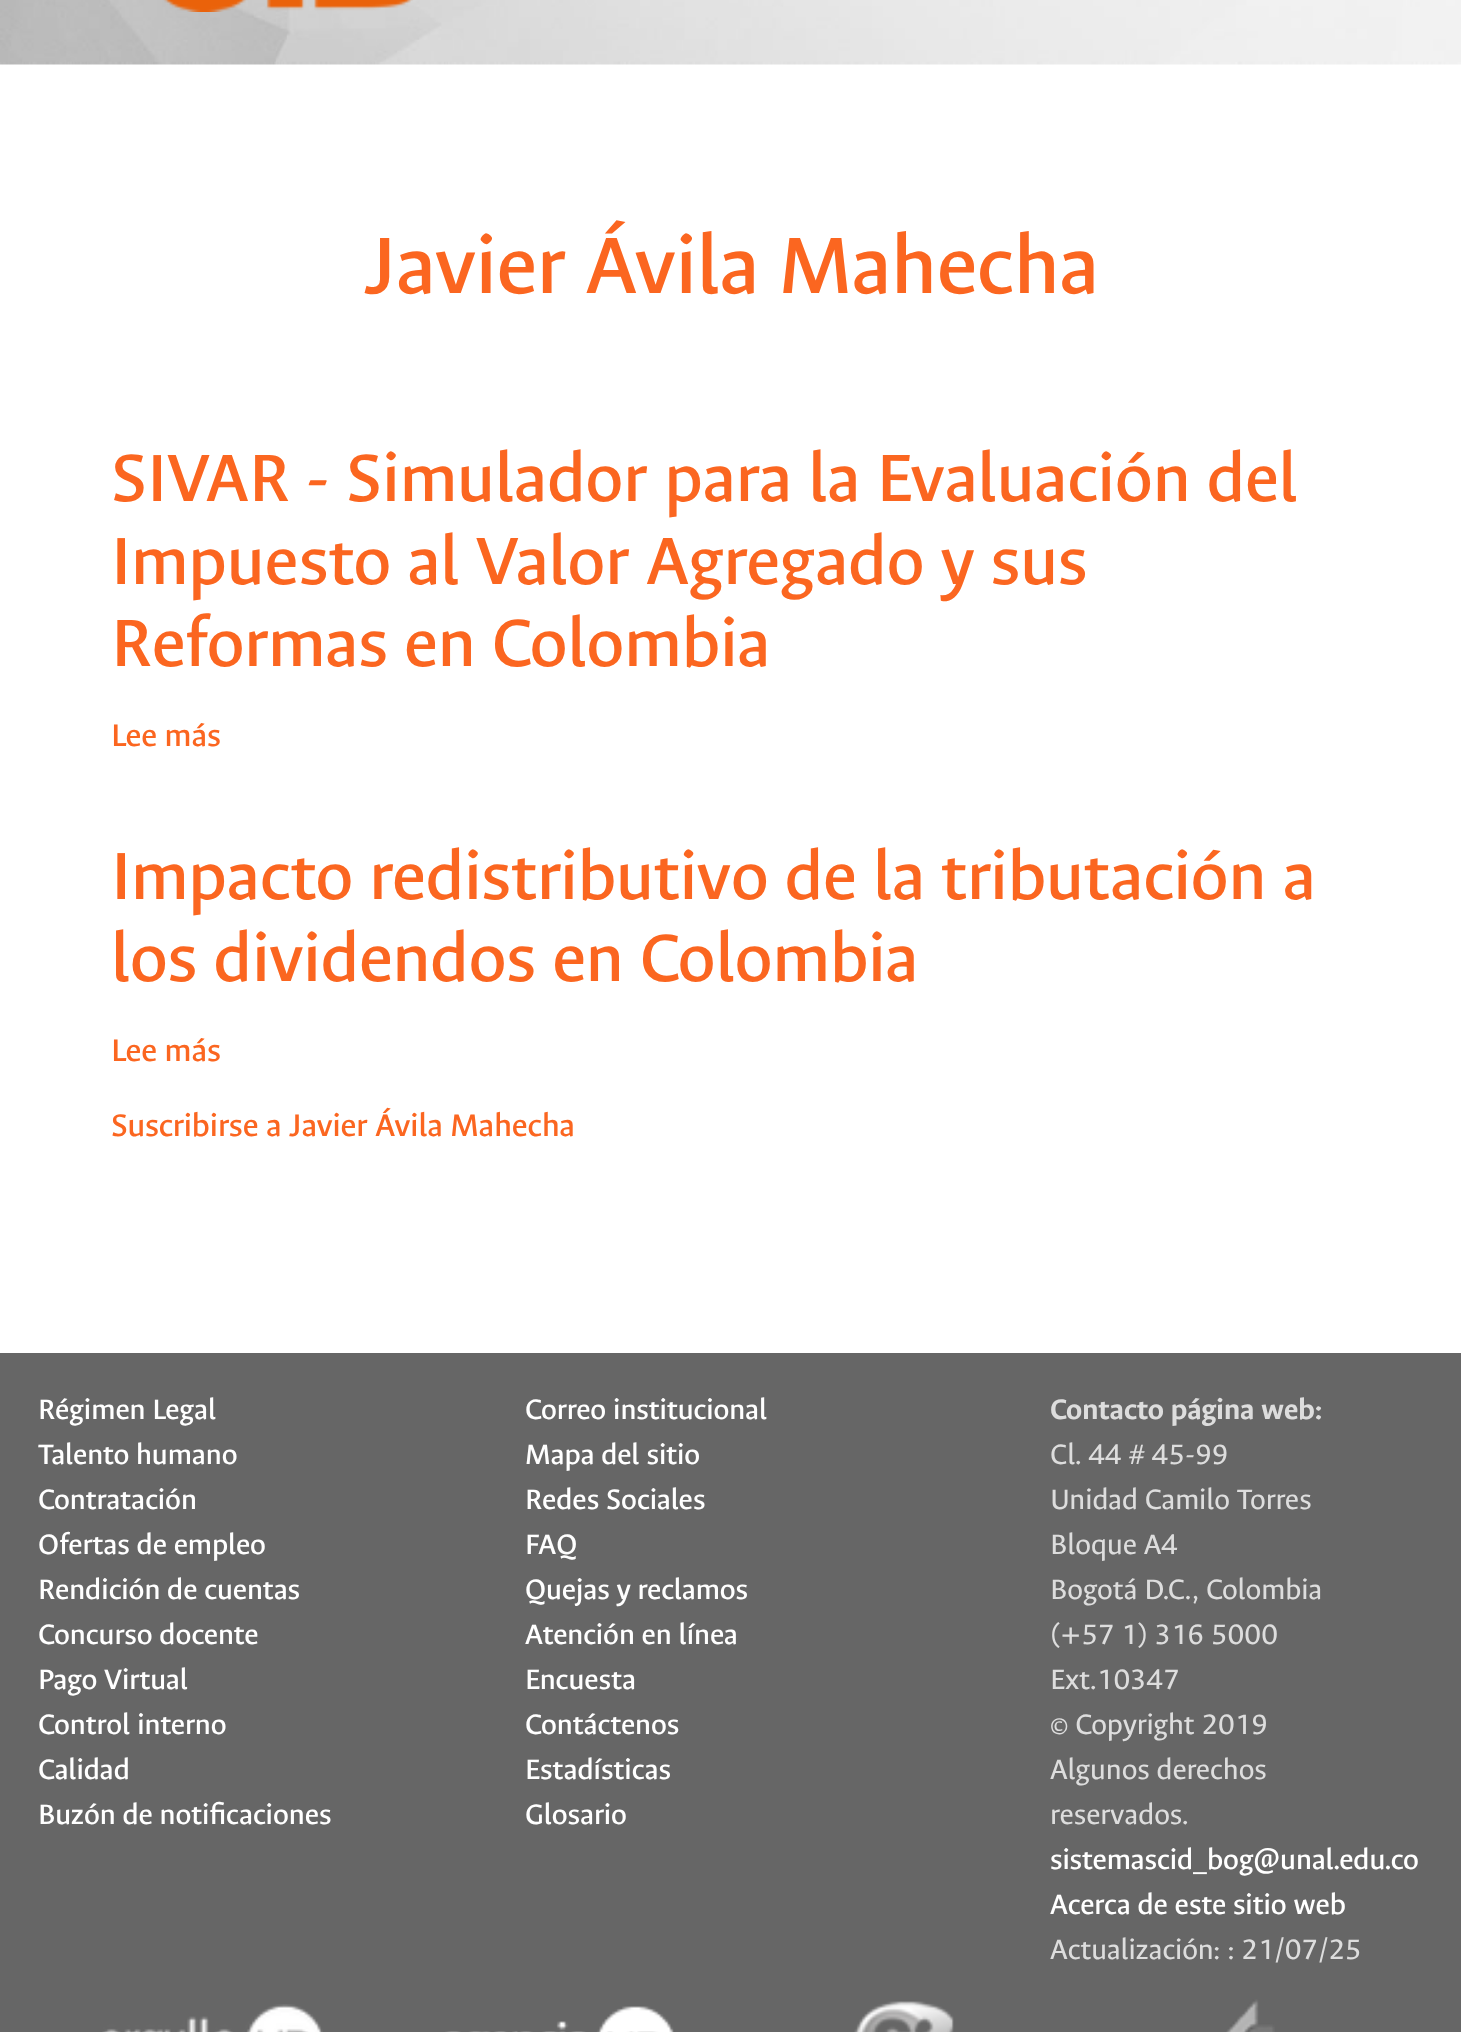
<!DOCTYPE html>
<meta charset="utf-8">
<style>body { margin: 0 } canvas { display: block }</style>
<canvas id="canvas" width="1461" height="2032"></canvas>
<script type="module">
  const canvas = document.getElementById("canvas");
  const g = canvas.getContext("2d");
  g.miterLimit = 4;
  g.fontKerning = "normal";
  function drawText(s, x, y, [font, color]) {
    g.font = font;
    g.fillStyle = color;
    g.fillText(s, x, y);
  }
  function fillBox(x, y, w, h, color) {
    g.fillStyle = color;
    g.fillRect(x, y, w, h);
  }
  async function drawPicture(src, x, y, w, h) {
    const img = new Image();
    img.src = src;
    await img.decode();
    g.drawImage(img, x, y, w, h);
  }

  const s1 = ["500 90px Ancizar Sans", "#FB6620"];
  const s2 = ["500 75px Ancizar Sans", "#FB6620"];
  const s3 = ["500 35px Ancizar Sans", "#FB6620"];
  const s4 = ["500 31.5px Ancizar Sans", "#FFFFFF"];
  const s5 = ["bold 31.5px Ancizar Sans", "#DDDDDD"];
  const s6 = ["31.5px Ancizar Sans", "#DDDDDD"];

  fillBox(0, 0, 1461, 2032, "#FFFFFF");
  await drawPicture("pic1.png", 0, 0, 1461, 65);
  await drawPicture("pic2.png", 163, 0, 250, 12);
  drawText("Javier Ávila Mahecha", 364, 293, s1);
  drawText("SIVAR - Simulador para la Evaluación del", 111, 501, s2);
  drawText("Impuesto al Valor Agregado y sus", 111, 584, s2);
  drawText("Reformas en Colombia", 111, 666, s2);
  drawText("Lee más", 111, 746, s3);
  drawText("Impacto redistributivo de la tributación a", 111, 899, s2);
  drawText("los dividendos en Colombia", 111, 981, s2);
  drawText("Lee más", 111, 1061, s3);
  drawText("Suscribirse a Javier Ávila Mahecha", 111, 1136, s3);
  fillBox(0, 1353, 1461, 679, "#666666");
  drawText("Régimen Legal", 38, 1419, s4);
  drawText("Talento humano", 38, 1464, s4);
  drawText("Contratación", 38, 1509, s4);
  drawText("Ofertas de empleo", 38, 1554, s4);
  drawText("Rendición de cuentas", 38, 1599, s4);
  drawText("Concurso docente", 38, 1644, s4);
  drawText("Pago Virtual", 38, 1689, s4);
  drawText("Control interno", 38, 1734, s4);
  drawText("Calidad", 38, 1779, s4);
  drawText("Buzón de notificaciones", 38, 1824, s4);
  drawText("Correo institucional", 525, 1419, s4);
  drawText("Mapa del sitio", 525, 1464, s4);
  drawText("Redes Sociales", 525, 1509, s4);
  drawText("FAQ", 525, 1554, s4);
  drawText("Quejas y reclamos", 525, 1599, s4);
  drawText("Atención en línea", 525, 1644, s4);
  drawText("Encuesta", 525, 1689, s4);
  drawText("Contáctenos", 525, 1734, s4);
  drawText("Estadísticas", 525, 1779, s4);
  drawText("Glosario", 525, 1824, s4);
  drawText("Contacto página web:", 1050, 1419, s5);
  drawText("Cl. 44 # 45-99", 1050, 1464, s6);
  drawText("Unidad Camilo Torres", 1050, 1509, s6);
  drawText("Bloque A4", 1050, 1554, s6);
  drawText("Bogotá D.C., Colombia", 1050, 1599, s6);
  drawText("(+57 1) 316 5000", 1050, 1644, s6);
  drawText("Ext.10347", 1050, 1689, s6);
  drawText("© Copyright 2019", 1050, 1734, s6);
  drawText("Algunos derechos", 1050, 1779, s6);
  drawText("reservados.", 1050, 1824, s6);
  drawText("sistemascid_bog@unal.edu.co", 1050, 1869, s4);
  drawText("Acerca de este sitio web", 1050, 1914, s4);
  drawText("Actualización: : 21/07/25", 1050, 1959, s6);
  await drawPicture("pic3.png", 102, 2004, 221, 28);
  await drawPicture("pic4.png", 445, 2006, 229, 26);
  await drawPicture("pic5.png", 854, 2001, 100, 31);
  await drawPicture("pic6.png", 1226, 1999, 49, 33);
</script>
